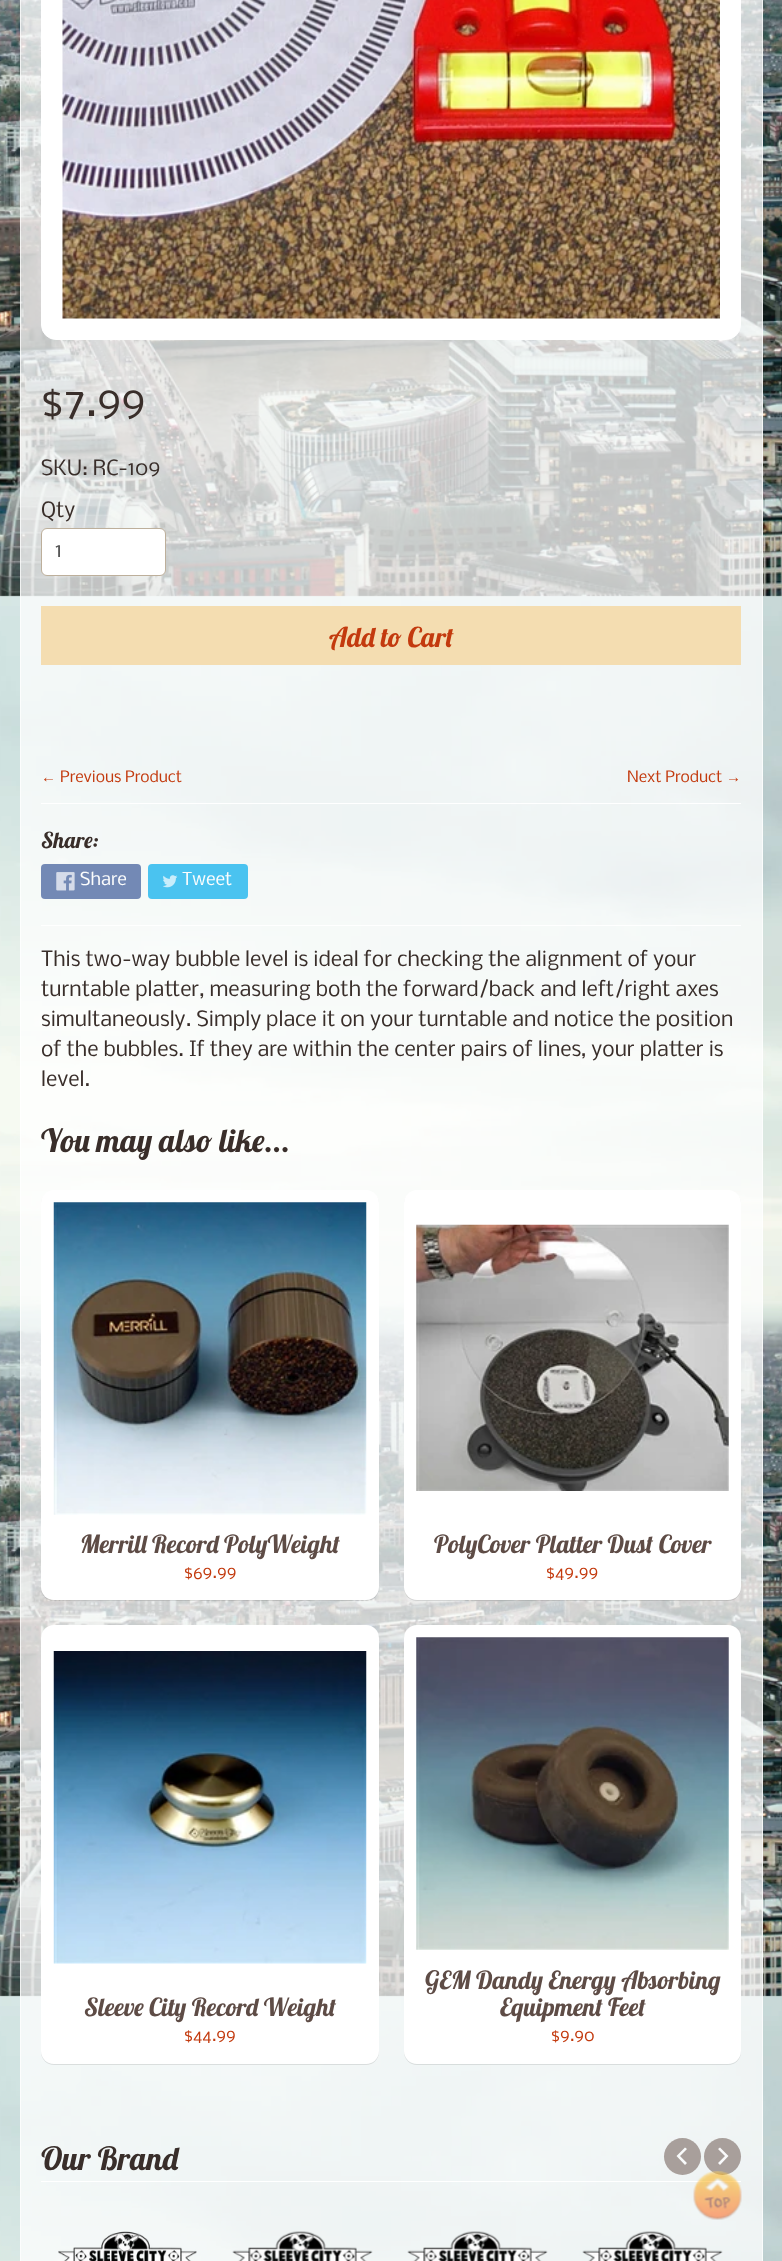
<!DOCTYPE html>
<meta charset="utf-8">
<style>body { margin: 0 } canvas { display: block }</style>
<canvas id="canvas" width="782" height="2261"></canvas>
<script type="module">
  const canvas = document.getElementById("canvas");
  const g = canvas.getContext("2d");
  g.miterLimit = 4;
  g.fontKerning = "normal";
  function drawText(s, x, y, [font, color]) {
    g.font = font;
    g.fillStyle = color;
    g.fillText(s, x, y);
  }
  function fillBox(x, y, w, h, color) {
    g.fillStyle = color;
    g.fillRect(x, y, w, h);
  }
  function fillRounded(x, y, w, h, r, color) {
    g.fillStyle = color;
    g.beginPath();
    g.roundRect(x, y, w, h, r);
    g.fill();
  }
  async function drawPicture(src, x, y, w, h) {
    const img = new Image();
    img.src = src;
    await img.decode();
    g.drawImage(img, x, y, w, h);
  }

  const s1 = ["40px Nobile", "#392E2A"];
  const s2 = ["20px Nobile", "#392E2A"];
  const s3 = ["20px Nobile", "#555555"];
  const s4 = ["27.5px Lobster", "#C33A0E"];
  const s5 = ["15px Liberation Sans", "#C33A0E"];
  const s6 = ["15px Nobile", "#C33A0E"];
  const s7 = ["22px Lobster", "#392E2A"];
  const s8 = ["17px Nobile", "#FCFDFD"];
  const s9 = ["32px Lobster", "#392E2A"];
  const s10 = ["25px Lobster", "#5E4C46"];
  const s11 = ["16px Nobile", "#C33A0E"];

  fillBox(0, 0, 782, 2261, "#FFFFFF");
  await drawPicture("pic1.png", 0, 0, 782, 2261);
  g.strokeStyle = "rgba(255, 255, 255, 0.7)";
  g.strokeRect(20.5, -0.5, 742, 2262);
  g.beginPath();
  g.roundRect(41.5, -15.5, 699, 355, 14.5);
  g.fill();
  g.strokeStyle = "#FFFFFF";
  g.stroke();
  await drawPicture("pic2.png", 62, 0, 658, 319);
  drawText("$7.99", 41, 416, s1);
  drawText("SKU: RC-109", 41, 475, s2);
  drawText("Qty", 41, 517, s2);
  g.fillStyle = "#FFFFFF";
  g.beginPath();
  g.roundRect(41.5, 528.5, 124, 47, 5.5);
  g.fill();
  g.strokeStyle = "#BDAF9B";
  g.stroke();
  drawText("1", 55, 557, s3);
  fillBox(41, 606, 700, 59, "#F4DDB1");
  drawText("Add to Cart", 329, 647, s4);
  drawText("←", 41, 782, s5);
  drawText("Previous Product", 60, 782, s6);
  drawText("Next Product", 627, 782, s6);
  drawText("→", 726, 782, s5);
  fillBox(41, 803, 700, 1, "#FFFFFF");
  drawText("Share:", 41, 848, s7);
  fillRounded(41, 864, 100, 35, 4, "#7389B5");
  await drawPicture("pic3.png", 56, 872, 19, 19);
  drawText("Share", 80, 885, s8);
  fillRounded(148, 864, 100, 35, 4, "#4AC3F0");
  await drawPicture("pic4.png", 163, 875, 15, 13);
  drawText("Tweet", 182, 885, s8);
  fillBox(41, 925, 700, 1, "#FFFFFF");
  drawText("This two-way bubble level is ideal for checking the alignment of your", 41, 966, s2);
  drawText("turntable platter, measuring both the forward/back and left/right axes", 41, 996, s2);
  drawText("simultaneously. Simply place it on your turntable and notice the position", 41, 1026, s2);
  drawText("of the bubbles. If they are within the center pairs of lines, your platter is", 41, 1056, s2);
  drawText("level.", 41, 1086, s2);
  drawText("You may also like...", 41, 1152, s9);
  g.fillStyle = "rgba(0, 0, 0, 0.1)";
  g.filter = "blur(0.5px)";
  g.beginPath();
  g.roundRect(41, 1191, 338, 410, 13);
  g.fill();
  g.filter = "none";
  fillRounded(41, 1190, 338, 410, 13, "#FFFFFF");
  await drawPicture("pic5.png", 53, 1202, 314, 313);
  drawText("Merrill Record PolyWeight", 80, 1553, s10);
  drawText("$69.99", 184, 1578, s11);
  g.fillStyle = "rgba(0, 0, 0, 0.1)";
  g.filter = "blur(0.5px)";
  g.beginPath();
  g.roundRect(404, 1191, 337, 410, 13);
  g.fill();
  g.filter = "none";
  fillRounded(404, 1190, 337, 410, 13, "#FFFFFF");
  await drawPicture("pic6.png", 416, 1224, 313, 267);
  drawText("PolyCover Platter Dust Cover", 434, 1553, s10);
  drawText("$49.99", 546, 1578, s11);
  g.fillStyle = "rgba(0, 0, 0, 0.1)";
  g.filter = "blur(0.5px)";
  g.beginPath();
  g.roundRect(41, 1626, 338, 439, 13);
  g.fill();
  g.filter = "none";
  fillRounded(41, 1625, 338, 439, 13, "#FFFFFF");
  await drawPicture("pic7.png", 53, 1651, 314, 313);
  drawText("Sleeve City Record Weight", 84, 2016, s10);
  drawText("$44.99", 184, 2041, s11);
  g.fillStyle = "rgba(0, 0, 0, 0.1)";
  g.filter = "blur(0.5px)";
  g.beginPath();
  g.roundRect(404, 1626, 337, 439, 13);
  g.fill();
  g.filter = "none";
  fillRounded(404, 1625, 337, 439, 13, "#FFFFFF");
  await drawPicture("pic8.png", 416, 1637, 313, 313);
  drawText("GEM Dandy Energy Absorbing", 425, 1989, s10);
  drawText("Equipment Feet", 500, 2016, s10);
  drawText("$9.90", 551, 2041, s11);
  g.fillStyle = "#A89F9B";
  g.beginPath();
  g.arc(682.5, 2156.5, 18.5, 0, Math.PI * 2);
  g.fill();
  g.fillStyle = "#F9FBFB";
  g.beginPath();
  g.moveTo(685, 2147.5);
  g.lineTo(687, 2149);
  g.lineTo(680, 2156);
  g.lineTo(687, 2163);
  g.lineTo(685, 2165);
  g.lineTo(676.5, 2156);
  g.closePath();
  g.fill();
  g.fillStyle = "#A89F9B";
  g.beginPath();
  g.arc(722.5, 2156.5, 18.5, 0, Math.PI * 2);
  g.fill();
  g.fillStyle = "#F9FAFB";
  g.beginPath();
  g.moveTo(720, 2165);
  g.lineTo(718, 2163);
  g.lineTo(725, 2156);
  g.lineTo(718, 2149);
  g.lineTo(720, 2147.5);
  g.lineTo(728.5, 2156);
  g.closePath();
  g.fill();
  await drawPicture("pic9.png", 58, 2231, 139, 30);
  await drawPicture("pic10.png", 232, 2231, 141, 30);
  await drawPicture("pic11.png", 407, 2231, 141, 30);
  await drawPicture("pic12.png", 582, 2231, 141, 30);
  fillBox(41, 2181, 700, 1, "#FFFFFF");
  drawText("Our Brand", 41, 2170, s9);
  await drawPicture("pic13.png", 693, 2171, 49, 49);
</script>
